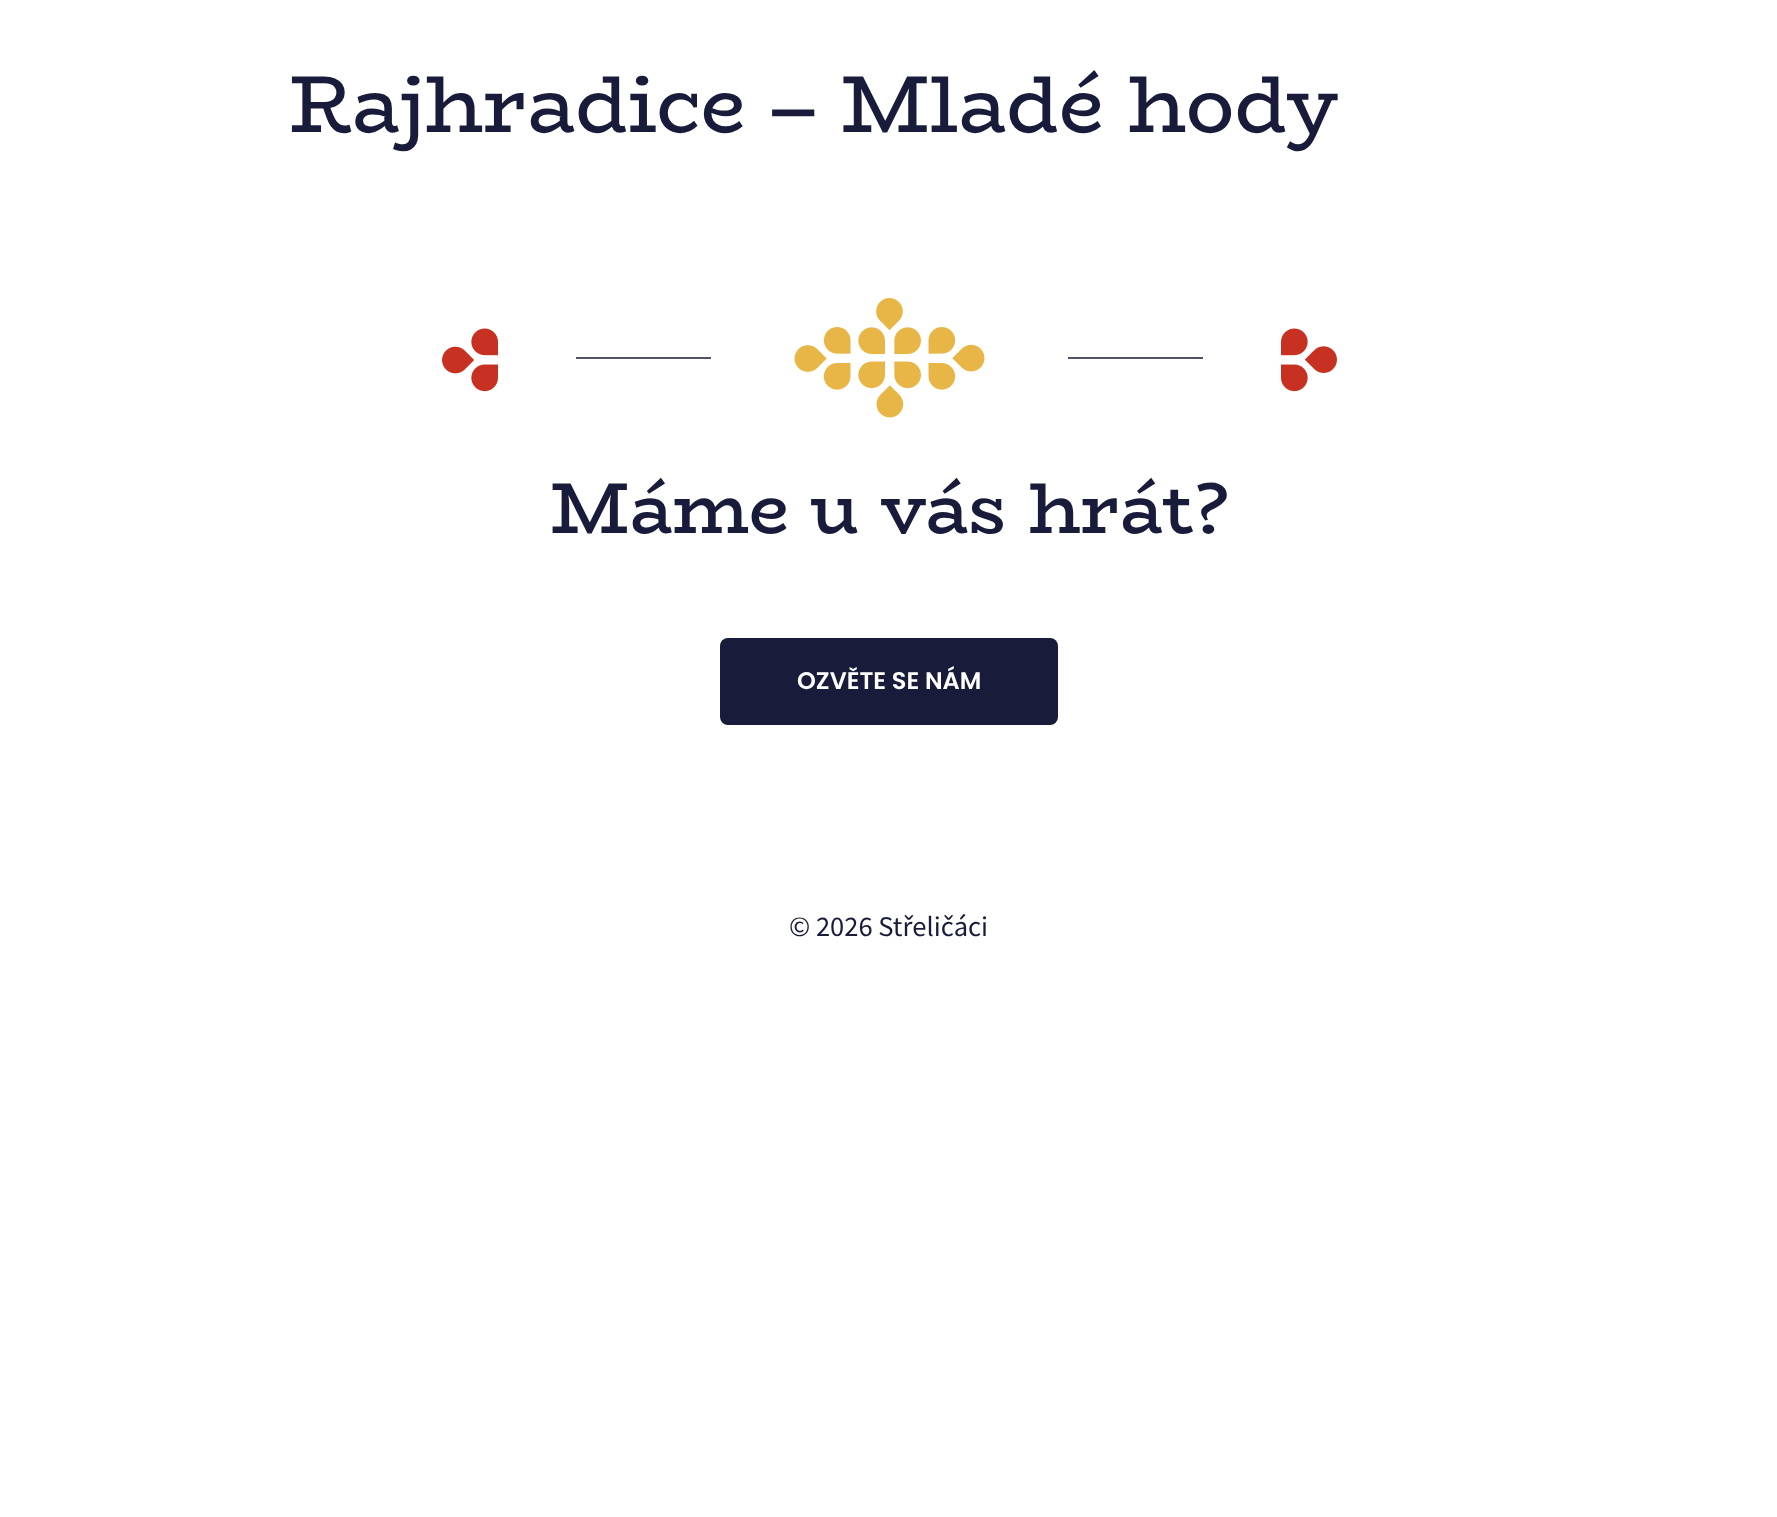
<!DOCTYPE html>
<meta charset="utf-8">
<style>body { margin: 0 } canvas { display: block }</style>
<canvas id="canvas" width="1777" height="1517"></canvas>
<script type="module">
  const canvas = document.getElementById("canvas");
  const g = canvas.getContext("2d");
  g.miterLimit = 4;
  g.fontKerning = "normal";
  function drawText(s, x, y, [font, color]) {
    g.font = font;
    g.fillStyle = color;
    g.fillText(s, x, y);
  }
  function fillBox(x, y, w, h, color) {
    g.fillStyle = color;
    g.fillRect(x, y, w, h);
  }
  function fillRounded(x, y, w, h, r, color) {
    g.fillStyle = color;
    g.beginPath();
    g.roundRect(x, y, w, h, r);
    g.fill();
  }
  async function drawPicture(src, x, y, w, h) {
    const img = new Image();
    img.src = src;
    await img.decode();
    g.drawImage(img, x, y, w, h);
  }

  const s1 = ["81px BioRhyme", "#181B3A"];
  const s2 = ["500 72px BioRhyme", "#181B3A"];
  const s3 = ["600 24px Poppins", "#FFFFFF"];
  const s4 = ["28.5px Source Sans Pro", "#181B3A"];

  fillBox(0, 0, 1777, 1517, "#FFFFFF");
  drawText("Rajhradice – Mladé hody", 289, 132, s1);
  await drawPicture("pic1.png", 442, 298, 895, 120);
  drawText("Máme u vás hrát?", 550, 533, s2);
  fillRounded(720, 638, 338, 87, 8, "#181B3A");
  drawText("OZVĚTE SE NÁM", 797, 689, s3);
  drawText("© 2026 Střeličáci", 789, 936, s4);
</script>
